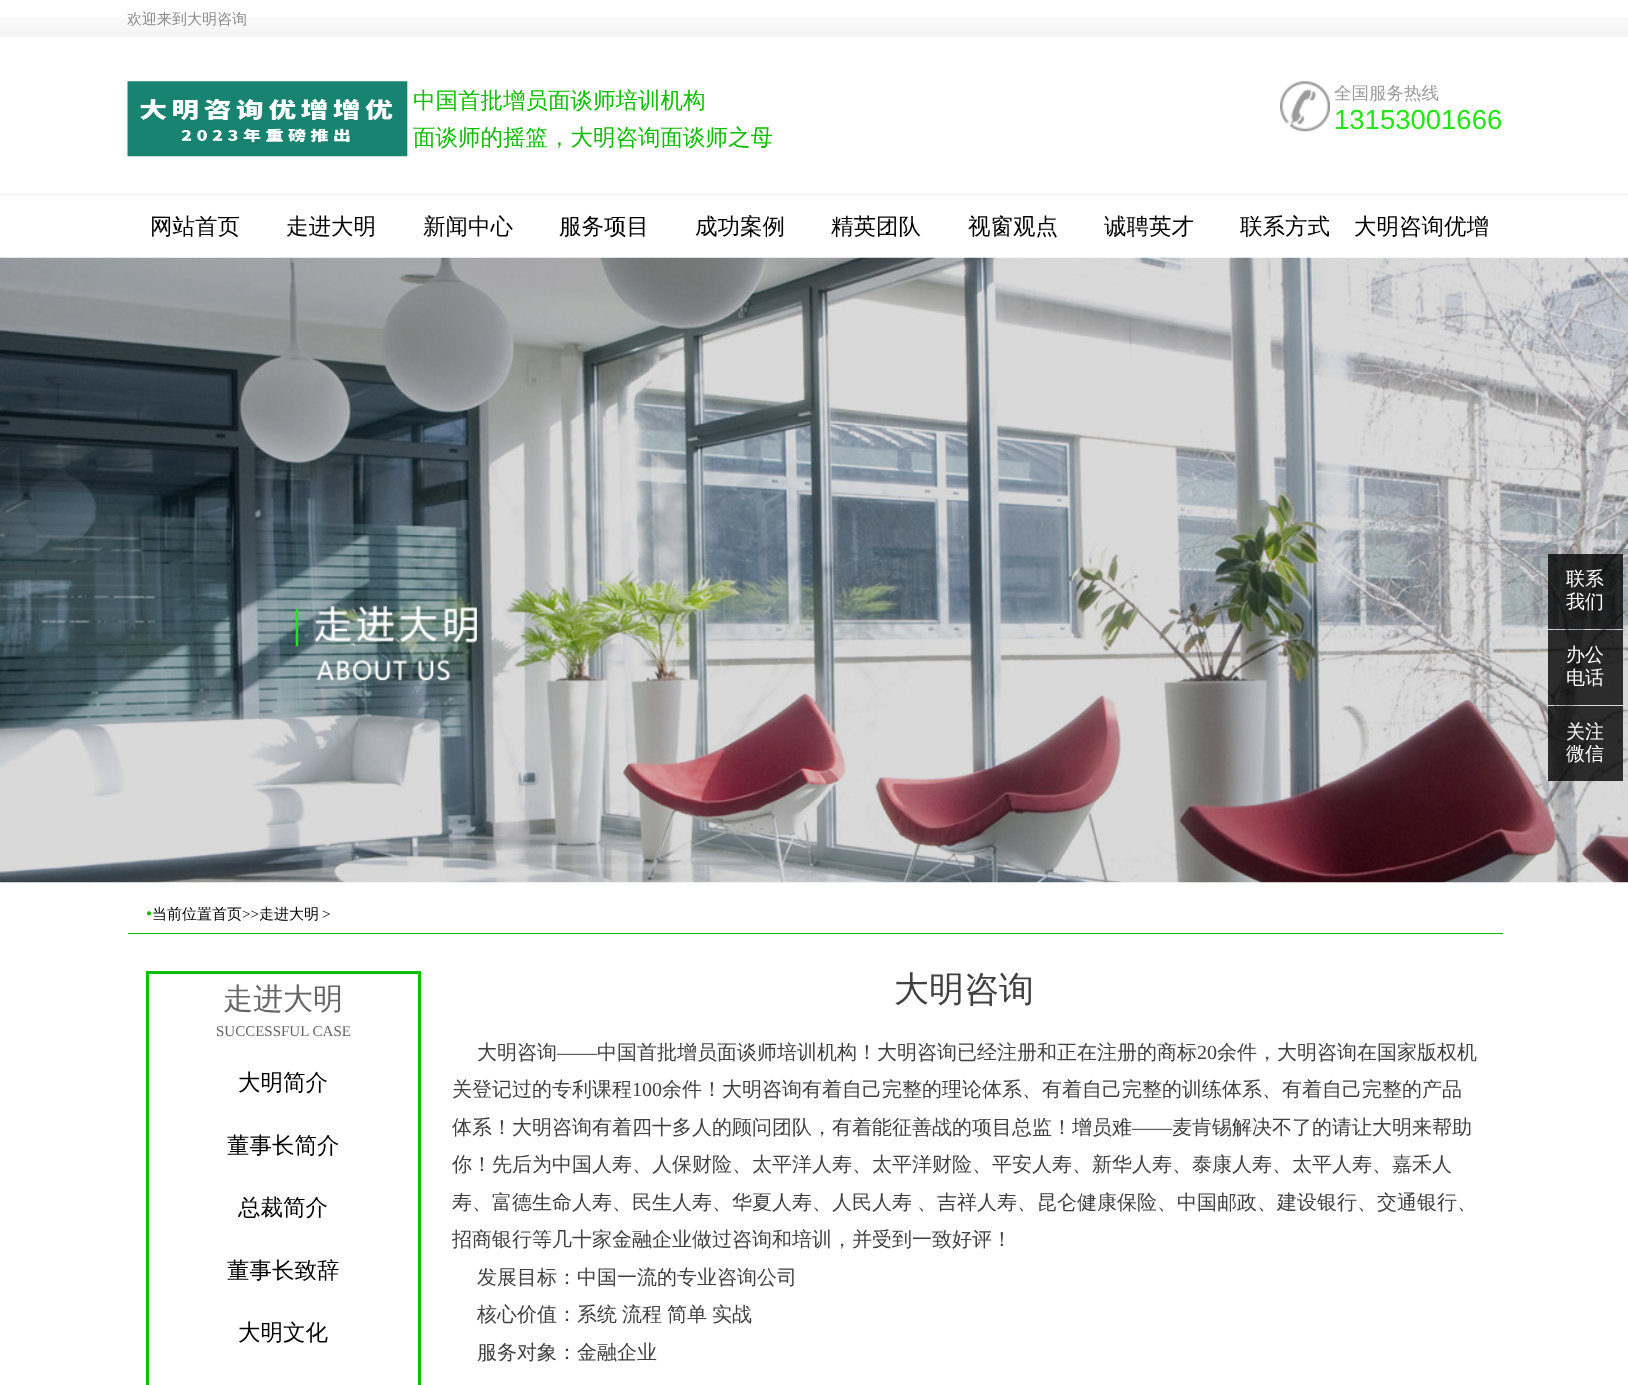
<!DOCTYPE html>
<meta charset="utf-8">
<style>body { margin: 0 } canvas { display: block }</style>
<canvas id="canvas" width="1628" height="1385"></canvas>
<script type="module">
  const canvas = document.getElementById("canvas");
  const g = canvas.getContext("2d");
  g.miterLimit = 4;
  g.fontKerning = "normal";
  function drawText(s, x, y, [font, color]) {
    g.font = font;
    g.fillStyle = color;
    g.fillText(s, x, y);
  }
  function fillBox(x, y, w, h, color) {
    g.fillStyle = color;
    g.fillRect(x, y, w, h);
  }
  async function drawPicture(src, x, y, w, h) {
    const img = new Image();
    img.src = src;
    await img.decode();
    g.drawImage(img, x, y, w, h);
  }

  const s1 = ["500 15px WenQuanYi Zen Hei", "#8B8B8B"];
  const s2 = ["500 22.5px WenQuanYi Zen Hei", "#0DBD00"];
  const s3 = ["500 17.5px WenQuanYi Zen Hei", "#9B9B9B"];
  const s4 = ["27.5px Liberation Sans", "#22E514"];
  const s5 = ["500 22.5px WenQuanYi Zen Hei", "#000000"];
  const s6 = ["500 19px WenQuanYi Zen Hei", "#FFFFFF"];
  const s7 = ["17.5px Liberation Serif", "#0DBD00"];
  const s8 = ["500 15px WenQuanYi Zen Hei", "#000000"];
  const s9 = ["15px Liberation Serif", "#000000"];
  const s10 = ["500 30px WenQuanYi Zen Hei", "#666666"];
  const s11 = ["15px Liberation Serif", "#666666"];
  const s12 = ["500 35px WenQuanYi Zen Hei", "#404040"];
  const s13 = ["500 20px WenQuanYi Zen Hei", "#404040"];
  const s14 = ["20px Liberation Serif", "#404040"];

  fillBox(0, 0, 1628, 1385, "#FFFFFF");
  await drawPicture("pic1.png", 0, 17, 1628, 20);
  drawText("欢迎来到大明咨询", 127, 24, s1);
  await drawPicture("pic2.png", 127, 81, 281, 76);
  drawText("中国首批增员面谈师培训机构", 413, 108, s2);
  drawText("面谈师的摇篮，大明咨询面谈师之母", 413, 145, s2);
  await drawPicture("pic3.png", 1280, 81, 50, 51);
  drawText("全国服务热线", 1334, 99, s3);
  drawText("13153001666", 1334, 129, s4);
  fillBox(0, 194, 1628, 1, "#ECFAEB");
  drawText("网站首页", 150, 234, s5);
  drawText("走进大明", 286, 234, s5);
  drawText("新闻中心", 423, 234, s5);
  drawText("服务项目", 559, 234, s5);
  drawText("成功案例", 695, 234, s5);
  drawText("精英团队", 831, 234, s5);
  drawText("视窗观点", 968, 234, s5);
  drawText("诚聘英才", 1104, 234, s5);
  drawText("联系方式", 1240, 234, s5);
  drawText("大明咨询优增", 1354, 234, s5);
  await drawPicture("pic4.png", 0, 257, 1628, 626);
  fillBox(1548, 554, 75, 75, "rgba(0, 0, 0, 0.8)");
  drawText("联系", 1566, 585, s6);
  drawText("我们", 1566, 608, s6);
  fillBox(1548, 630, 75, 75, "rgba(0, 0, 0, 0.8)");
  drawText("办公", 1566, 661, s6);
  drawText("电话", 1566, 684, s6);
  fillBox(1548, 706, 75, 75, "rgba(0, 0, 0, 0.8)");
  drawText("关注", 1566, 738, s6);
  drawText("微信", 1566, 760, s6);
  fillBox(128, 933, 1375, 1, "#0DBD00");
  drawText("•", 146, 919, s7);
  drawText("当前位置首页", 152, 919, s8);
  drawText(">>", 242, 919, s9);
  drawText("走进大明", 259, 919, s8);
  drawText(">", 322, 919, s9);
  g.strokeStyle = "#0DBD00";
  g.lineWidth = 3;
  g.strokeRect(147.5, 972.5, 272, 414);
  drawText("走进大明", 223, 1009, s10);
  drawText("SUCCESSFUL CASE", 216, 1036, s11);
  drawText("大明简介", 238, 1090, s5);
  drawText("董事长简介", 227, 1153, s5);
  drawText("总裁简介", 238, 1215, s5);
  drawText("董事长致辞", 227, 1278, s5);
  drawText("大明文化", 238, 1340, s5);
  drawText("大明咨询", 894, 1001, s12);
  drawText("大明咨询", 477, 1059, s13);
  drawText("——", 557, 1059, s14);
  drawText("中国首批增员面谈师培训机构！大明咨询已经注册和正在注册的商标", 597, 1059, s13);
  drawText("20", 1197, 1059, s14);
  drawText("余件，大明咨询在国家版权机", 1217, 1059, s13);
  drawText("关登记过的专利课程", 452, 1096, s13);
  drawText("100", 632, 1096, s14);
  drawText("余件！大明咨询有着自己完整的理论体系、有着自己完整的训练体系、有着自己完整的产品", 662, 1096, s13);
  drawText("体系！大明咨询有着四十多人的顾问团队，有着能征善战的项目总监！增员难", 452, 1134, s13);
  drawText("——", 1132, 1134, s14);
  drawText("麦肯锡解决不了的请让大明来帮助", 1172, 1134, s13);
  drawText("你！先后为中国人寿、人保财险、太平洋人寿、太平洋财险、平安人寿、新华人寿、泰康人寿、太平人寿、嘉禾人", 452, 1171, s13);
  g.wordSpacing = "-1px";
  drawText("寿、富德生命人寿、民生人寿、华夏人寿、人民人寿 、吉祥人寿、昆仑健康保险、中国邮政、建设银行、交通银行、", 452, 1209, s13);
  g.wordSpacing = "0px";
  drawText("招商银行等几十家金融企业做过咨询和培训，并受到一致好评！", 452, 1246, s13);
  drawText("发展目标：中国一流的专业咨询公司", 477, 1284, s13);
  g.wordSpacing = "-1px";
  drawText("核心价值：系统 流程 简单 实战", 477, 1321, s13);
  g.wordSpacing = "0px";
  drawText("服务对象：金融企业", 477, 1359, s13);
</script>
